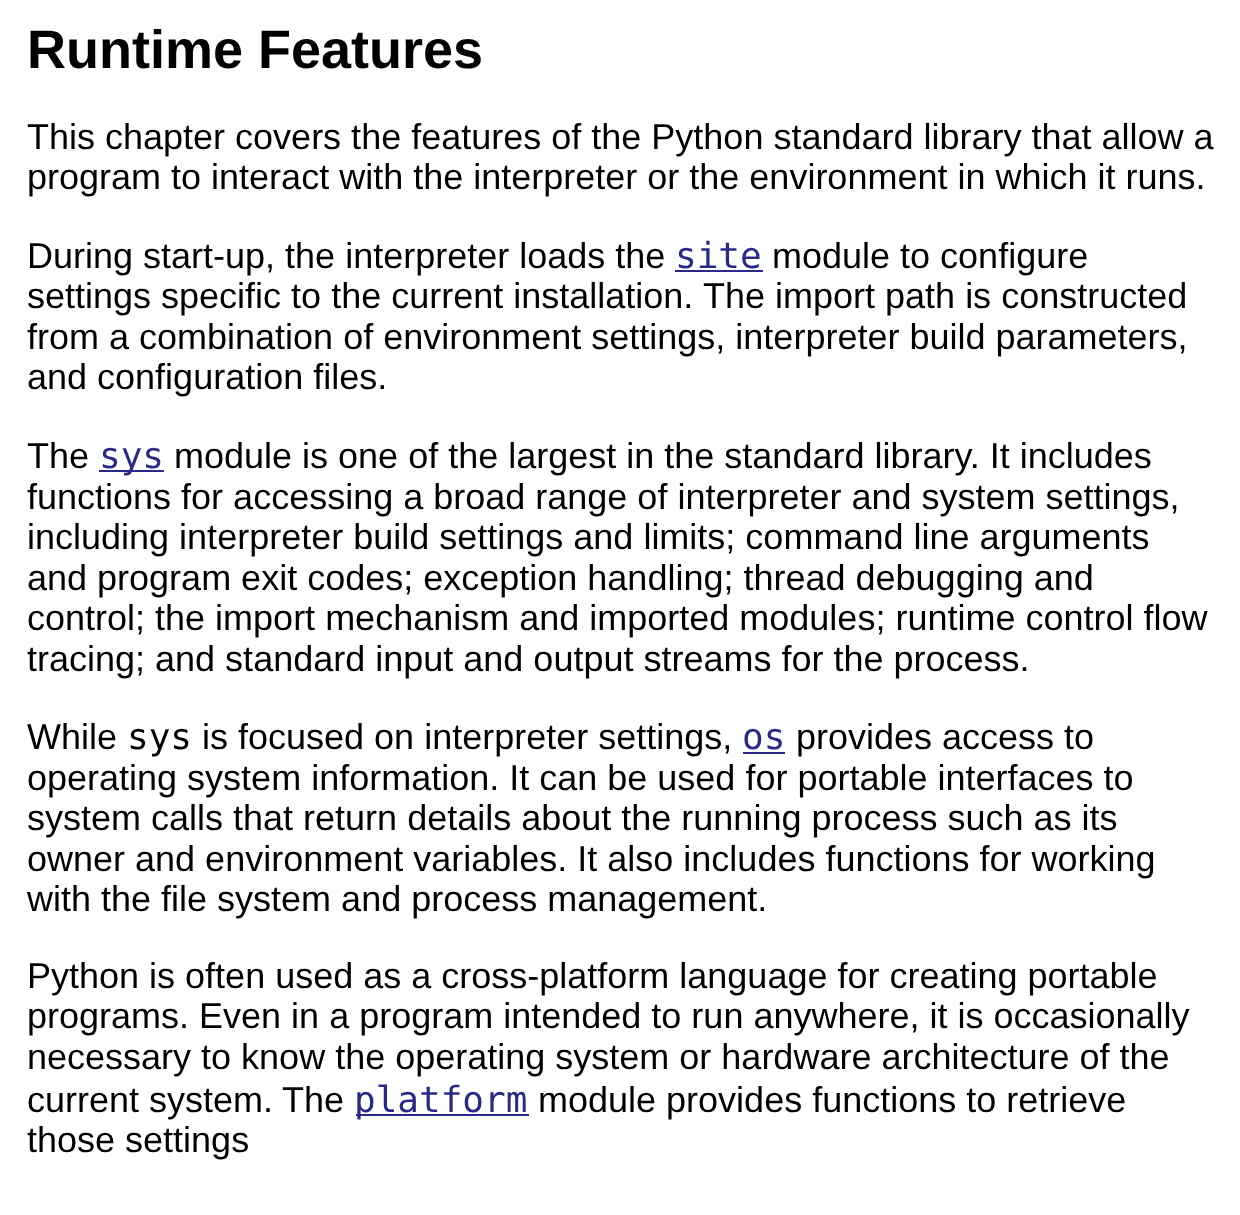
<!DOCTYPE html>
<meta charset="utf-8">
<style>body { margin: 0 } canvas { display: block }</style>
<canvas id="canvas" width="1240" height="1215"></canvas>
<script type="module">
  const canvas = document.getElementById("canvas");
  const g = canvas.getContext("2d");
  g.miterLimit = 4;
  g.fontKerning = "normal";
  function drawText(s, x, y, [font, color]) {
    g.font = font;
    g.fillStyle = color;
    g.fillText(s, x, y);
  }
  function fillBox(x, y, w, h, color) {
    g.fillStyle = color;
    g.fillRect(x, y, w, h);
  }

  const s1 = ["bold 54px Liberation Sans", "#000000"];
  const s2 = ["36px Liberation Sans", "#000000"];
  const s3 = ["36px DejaVu Sans Mono", "#292A88"];
  const s4 = ["36px DejaVu Sans Mono", "#000000"];

  fillBox(0, 0, 1240, 1215, "#FFFFFF");
  drawText("Runtime Features", 27, 68, s1);
  drawText("This chapter covers the features of the Python standard library that allow a", 27, 149, s2);
  drawText("program to interact with the interpreter or the environment in which it runs.", 27, 189, s2);
  drawText("During start-up, the interpreter loads the", 27, 268, s2);
  drawText("site", 675, 268, s3);
  fillBox(675, 270, 88, 2, "#292A88");
  drawText("module to configure", 772, 268, s2);
  drawText("settings specific to the current installation.", 27, 308, s2);
  drawText("The import path is constructed", 703, 308, s2);
  drawText("from a combination of environment settings, interpreter build parameters,", 27, 349, s2);
  drawText("and configuration files.", 27, 389, s2);
  drawText("The", 27, 468, s2);
  fillBox(99, 470, 65, 2, "#292A88");
  drawText("sys", 99, 468, s3);
  drawText("module is one of the largest in the standard library. It includes", 174, 468, s2);
  drawText("functions for accessing a broad range of interpreter and system settings,", 27, 509, s2);
  drawText("including interpreter build settings and limits; command line arguments", 27, 549, s2);
  drawText("and program exit codes; exception handling; thread debugging and", 27, 590, s2);
  drawText("control; the import mechanism and imported modules; runtime control flow", 27, 630, s2);
  drawText("tracing; and standard input and output streams for the process.", 27, 671, s2);
  drawText("While", 27, 749, s2);
  drawText("sys", 127, 749, s4);
  drawText("is focused on interpreter settings,", 202, 749, s2);
  drawText("os", 742, 749, s3);
  fillBox(743, 752, 42, 2, "#292A88");
  drawText("provides access to", 796, 749, s2);
  drawText("operating system information. It can be used for portable interfaces to", 27, 790, s2);
  drawText("system calls that return details about the running process such as its", 27, 830, s2);
  drawText("owner and environment variables. It also includes functions for working", 27, 871, s2);
  drawText("with the file system and process management.", 27, 911, s2);
  drawText("Python is often used as a cross-platform language for creating portable", 27, 988, s2);
  drawText("programs. Even in a program intended to run anywhere, it is occasionally", 27, 1028, s2);
  drawText("necessary to know the operating system or hardware architecture of the", 27, 1069, s2);
  drawText("current system.", 27, 1112, s2);
  drawText("The", 282, 1112, s2);
  fillBox(356, 1114, 173, 2, "#292A88");
  drawText("platform", 354, 1112, s3);
  drawText("module provides functions to retrieve", 538, 1112, s2);
  drawText("those settings", 27, 1152, s2);
</script>
